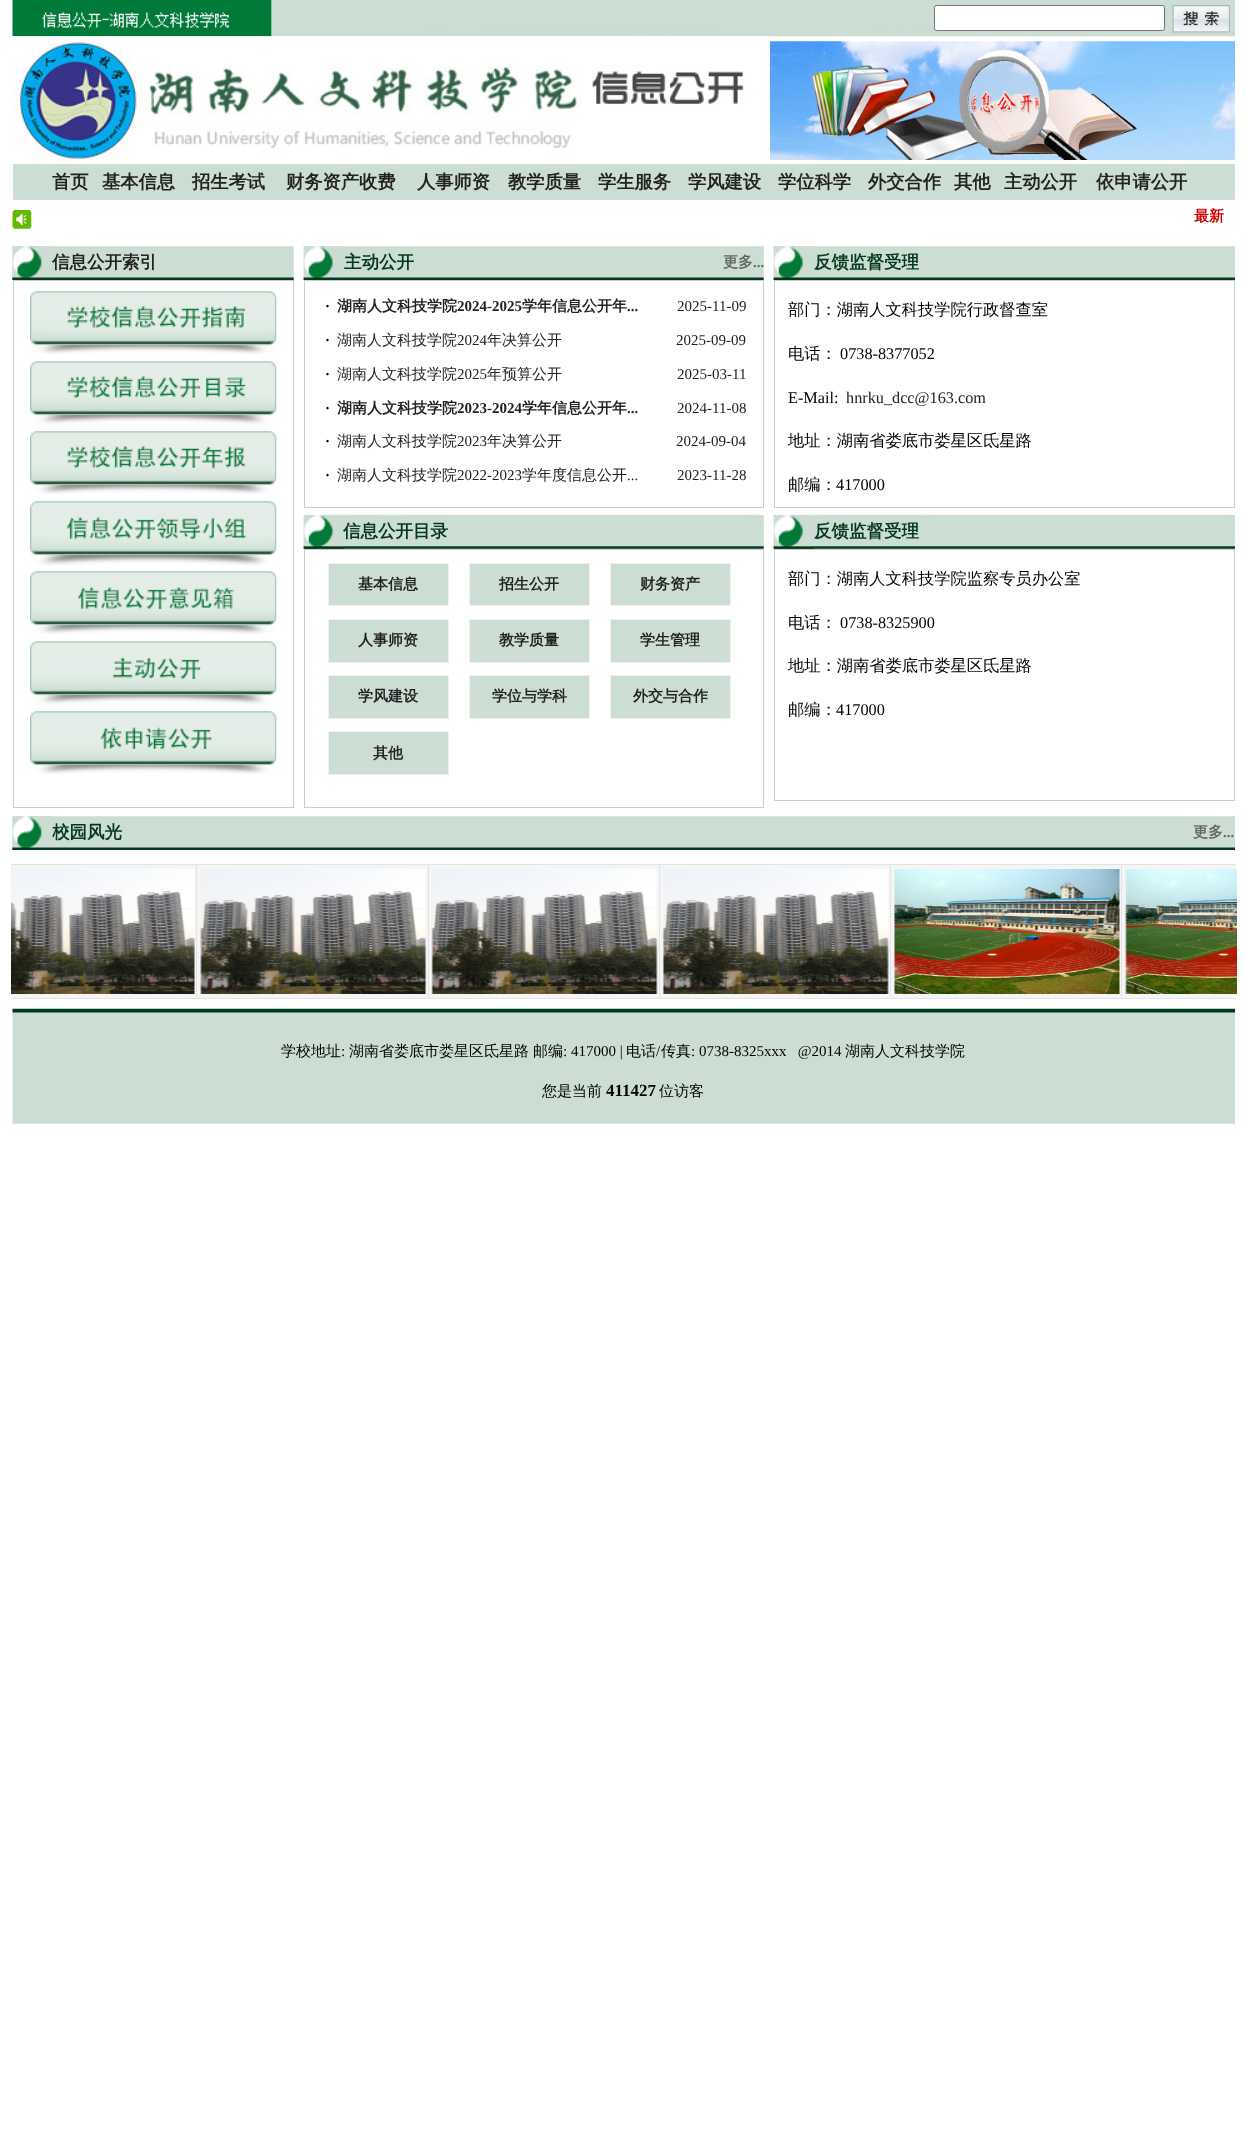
<!DOCTYPE html>
<meta charset="utf-8">
<style>body { margin: 0 } canvas { display: block }</style>
<canvas id="canvas" width="1246" height="2135"></canvas>
<script type="module">
  const canvas = document.getElementById("canvas");
  const g = canvas.getContext("2d");
  g.miterLimit = 4;
  g.fontKerning = "normal";
  function drawText(s, x, y, [font, color]) {
    g.font = font;
    g.fillStyle = color;
    g.fillText(s, x, y);
  }
  function fillBox(x, y, w, h, color) {
    g.fillStyle = color;
    g.fillRect(x, y, w, h);
  }
  async function drawPicture(src, x, y, w, h) {
    const img = new Image();
    img.src = src;
    await img.decode();
    g.drawImage(img, x, y, w, h);
  }

  const s1 = ["bold 18.25px WenQuanYi Zen Hei", "#222222"];
  const s2 = ["bold 15px WenQuanYi Zen Hei", "#CC0000"];
  const s3 = ["bold 17.5px WenQuanYi Zen Hei", "#222222"];
  const s4 = ["bold 17.5px WenQuanYi Zen Hei", "#06381D"];
  const s5 = ["bold 15px WenQuanYi Zen Hei", "#666666"];
  const s6 = ["bold 15px Liberation Serif", "#666666"];
  const s7 = ["bold 15px Liberation Serif", "#000000"];
  const s8 = ["bold 15px WenQuanYi Zen Hei", "#222222"];
  const s9 = ["bold 15px Liberation Serif", "#222222"];
  const s10 = ["15px Liberation Serif", "#222222"];
  const s11 = ["500 15px WenQuanYi Zen Hei", "#222222"];
  const s12 = ["500 16.25px WenQuanYi Zen Hei", "#000000"];
  const s13 = ["16.25px Liberation Serif", "#000000"];
  const s14 = ["16.25px Liberation Serif", "#222222"];
  const s15 = ["500 15px WenQuanYi Zen Hei", "#000000"];
  const s16 = ["15px Liberation Serif", "#000000"];
  const s17 = ["bold 17px Liberation Serif", "#000000"];

  fillBox(0, 0, 1246, 2135, "#FFFFFF");
  await drawPicture("pic1.png", 12, 0, 1223, 37);
  g.beginPath();
  g.roundRect(934.5, 5.5, 230, 25, 2);
  g.fill();
  g.strokeStyle = "#767676";
  g.stroke();
  await drawPicture("pic2.png", 1172, 5, 58, 28);
  await drawPicture("pic3.png", 12, 36, 757, 123);
  await drawPicture("pic4.png", 770, 41, 465, 119);
  fillBox(13, 164, 1222, 36, "#CCDDD3");
  drawText("首页", 52, 188, s1);
  drawText("基本信息", 102, 188, s1);
  drawText("招生考试", 192, 188, s1);
  drawText("财务资产收费", 286, 188, s1);
  drawText("人事师资", 417, 188, s1);
  drawText("教学质量", 508, 188, s1);
  drawText("学生服务", 598, 188, s1);
  drawText("学风建设", 688, 188, s1);
  drawText("学位科学", 778, 188, s1);
  drawText("外交合作", 868, 188, s1);
  drawText("其他", 954, 188, s1);
  drawText("主动公开", 1004, 188, s1);
  drawText("依申请公开", 1096, 188, s1);
  await drawPicture("pic5.png", 12, 210, 20, 19);
  drawText("最新", 1194, 221, s2);
  await drawPicture("pic6.png", 12, 246, 282, 34);
  await drawPicture("pic7.png", 12, 246, 41, 34);
  drawText("信息公开索引", 52, 268, s3);
  g.strokeStyle = "#CBCCCE";
  g.strokeRect(13.5, 280.5, 280, 527);
  await drawPicture("pic8.png", 30, 291, 247, 63);
  await drawPicture("pic9.png", 30, 361, 247, 63);
  await drawPicture("pic10.png", 30, 431, 247, 63);
  await drawPicture("pic11.png", 30, 501, 247, 65);
  await drawPicture("pic12.png", 30, 571, 247, 63);
  await drawPicture("pic13.png", 30, 641, 247, 63);
  await drawPicture("pic14.png", 30, 711, 247, 63);
  await drawPicture("pic15.png", 303, 246, 461, 34);
  drawText("主动公开", 344, 268, s4);
  await drawPicture("pic16.png", 303, 246, 41, 34);
  drawText("更多", 723, 267, s5);
  drawText("...", 753, 267, s6);
  g.strokeRect(304.5, 280.5, 459, 227);
  drawText("·", 325, 311, s7);
  drawText("湖南人文科技学院", 337, 311, s8);
  drawText("2024-2025", 457, 311, s9);
  drawText("学年信息公开年", 522, 311, s8);
  drawText("...", 627, 311, s9);
  drawText("2025-11-09", 677, 311, s10);
  drawText("·", 325, 345, s7);
  drawText("湖南人文科技学院", 337, 345, s11);
  drawText("2024", 457, 345, s10);
  drawText("年决算公开", 487, 345, s11);
  drawText("2025-09-09", 676, 345, s10);
  drawText("·", 325, 379, s7);
  drawText("湖南人文科技学院", 337, 379, s11);
  drawText("2025", 457, 379, s10);
  drawText("年预算公开", 487, 379, s11);
  drawText("2025-03-11", 677, 379, s10);
  drawText("·", 325, 413, s7);
  drawText("湖南人文科技学院", 337, 413, s8);
  drawText("2023-2024", 457, 413, s9);
  drawText("学年信息公开年", 522, 413, s8);
  drawText("...", 627, 413, s9);
  drawText("2024-11-08", 677, 413, s10);
  drawText("·", 325, 446, s7);
  drawText("湖南人文科技学院", 337, 446, s11);
  drawText("2023", 457, 446, s10);
  drawText("年决算公开", 487, 446, s11);
  drawText("2024-09-04", 676, 446, s10);
  drawText("·", 325, 480, s7);
  drawText("湖南人文科技学院", 337, 480, s11);
  drawText("2022-2023", 457, 480, s10);
  drawText("学年度信息公开", 522, 480, s11);
  drawText("...", 627, 480, s10);
  drawText("2023-11-28", 677, 480, s10);
  await drawPicture("pic17.png", 303, 515, 461, 34);
  await drawPicture("pic18.png", 303, 515, 41, 34);
  drawText("信息公开目录", 343, 537, s4);
  g.strokeRect(304.5, 549.5, 459, 258);
  g.fillStyle = "#CCDDD3";
  g.beginPath();
  g.rect(328.5, 563.5, 120, 42);
  g.fill();
  g.strokeStyle = "#F1F1F1";
  g.stroke();
  drawText("基本信息", 358, 589, s8);
  g.fillStyle = "#CCDDD3";
  g.beginPath();
  g.rect(469.5, 563.5, 120, 42);
  g.fill();
  g.stroke();
  drawText("招生公开", 499, 589, s8);
  g.fillStyle = "#CCDDD3";
  g.beginPath();
  g.rect(610.5, 563.5, 120, 42);
  g.fill();
  g.stroke();
  drawText("财务资产", 640, 589, s8);
  g.fillStyle = "#CCDDD3";
  g.beginPath();
  g.rect(328.5, 619.5, 120, 43);
  g.fill();
  g.stroke();
  drawText("人事师资", 358, 645, s8);
  g.fillStyle = "#CCDDD3";
  g.beginPath();
  g.rect(469.5, 619.5, 120, 43);
  g.fill();
  g.stroke();
  drawText("教学质量", 499, 645, s8);
  g.fillStyle = "#CCDDD3";
  g.beginPath();
  g.rect(610.5, 619.5, 120, 43);
  g.fill();
  g.stroke();
  drawText("学生管理", 640, 645, s8);
  g.fillStyle = "#CCDDD3";
  g.beginPath();
  g.rect(328.5, 675.5, 120, 43);
  g.fill();
  g.stroke();
  drawText("学风建设", 358, 701, s8);
  g.fillStyle = "#CCDDD3";
  g.beginPath();
  g.rect(469.5, 675.5, 120, 43);
  g.fill();
  g.stroke();
  drawText("学位与学科", 492, 701, s8);
  g.fillStyle = "#CCDDD3";
  g.beginPath();
  g.rect(610.5, 675.5, 120, 43);
  g.fill();
  g.stroke();
  drawText("外交与合作", 633, 701, s8);
  g.fillStyle = "#CCDDD3";
  g.beginPath();
  g.rect(328.5, 731.5, 120, 43);
  g.fill();
  g.stroke();
  drawText("其他", 373, 758, s8);
  await drawPicture("pic19.png", 773, 246, 462, 34);
  await drawPicture("pic20.png", 773, 246, 41, 34);
  drawText("反馈监督受理", 814, 268, s4);
  g.strokeStyle = "#CBCCCE";
  g.strokeRect(774.5, 280.5, 460, 227);
  drawText("部门：湖南人文科技学院行政督查室", 788, 315, s12);
  drawText("电话：", 788, 359, s12);
  drawText("0738-8377052", 840, 359, s13);
  drawText("E-Mail:", 788, 403, s13);
  drawText("hnrku_dcc@163.com", 846, 403, s14);
  drawText("地址：湖南省娄底市娄星区氐星路", 788, 446, s12);
  drawText("邮编：", 788, 490, s12);
  drawText("417000", 836, 490, s13);
  await drawPicture("pic21.png", 773, 515, 462, 34);
  await drawPicture("pic22.png", 773, 515, 41, 34);
  drawText("反馈监督受理", 814, 537, s4);
  g.strokeRect(774.5, 549.5, 460, 251);
  drawText("部门：湖南人文科技学院监察专员办公室", 788, 584, s12);
  drawText("电话：", 788, 628, s12);
  drawText("0738-8325900", 840, 628, s13);
  drawText("地址：湖南省娄底市娄星区氐星路", 788, 671, s12);
  drawText("邮编：", 788, 715, s12);
  drawText("417000", 836, 715, s13);
  await drawPicture("pic23.png", 12, 816, 1223, 34);
  drawText("校园风光", 52, 838, s4);
  await drawPicture("pic24.png", 12, 816, 41, 34);
  drawText("更多", 1193, 837, s5);
  drawText("...", 1223, 837, s6);
  fillBox(11, 865, 185, 133, "#F5F5F5");
  g.save();
  g.beginPath();
  g.rect(11, 864, 1225, 135);
  g.clip();
  g.strokeStyle = "#E3E3E3";
  g.strokeRect(-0.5, 864.5, 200, 134);
  g.restore();
  await drawPicture("pic25.png", 11, 869, 184, 125);
  fillBox(197, 865, 231, 133, "#F5F5F5");
  g.strokeStyle = "#E3E3E3";
  g.strokeRect(196.5, 864.5, 234, 134);
  await drawPicture("pic26.png", 200, 869, 227, 125);
  fillBox(429, 865, 230, 133, "#F5F5F5");
  g.strokeRect(428.5, 864.5, 234, 134);
  await drawPicture("pic27.png", 431, 869, 227, 125);
  fillBox(660, 865, 230, 133, "#F5F5F5");
  g.strokeRect(659.5, 864.5, 234, 134);
  await drawPicture("pic28.png", 662, 869, 227, 125);
  fillBox(891, 865, 230, 133, "#F5F5F5");
  g.strokeRect(890.5, 864.5, 234, 134);
  await drawPicture("pic29.png", 894, 869, 226, 125);
  fillBox(1122, 865, 114, 133, "#F5F5F5");
  g.save();
  g.beginPath();
  g.rect(11, 864, 1225, 135);
  g.clip();
  g.strokeRect(1121.5, 864.5, 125, 134);
  g.restore();
  await drawPicture("pic30.png", 1125, 869, 112, 125);
  await drawPicture("pic31.png", 12, 1008, 1223, 116);
  drawText("学校地址", 281, 1056, s15);
  drawText(":", 341, 1056, s16);
  drawText("湖南省娄底市娄星区氐星路", 349, 1056, s15);
  drawText("邮编", 533, 1056, s15);
  drawText(": 417000 |", 563, 1056, s16);
  drawText("电话", 626, 1056, s15);
  drawText("/", 656, 1056, s16);
  drawText("传真", 661, 1056, s15);
  drawText(": 0738-8325xxx   @2014", 691, 1056, s16);
  drawText("湖南人文科技学院", 845, 1056, s15);
  drawText("您是当前", 542, 1096, s15);
  drawText("411427", 606, 1096, s17);
  drawText("位访客", 659, 1096, s15);
</script>
